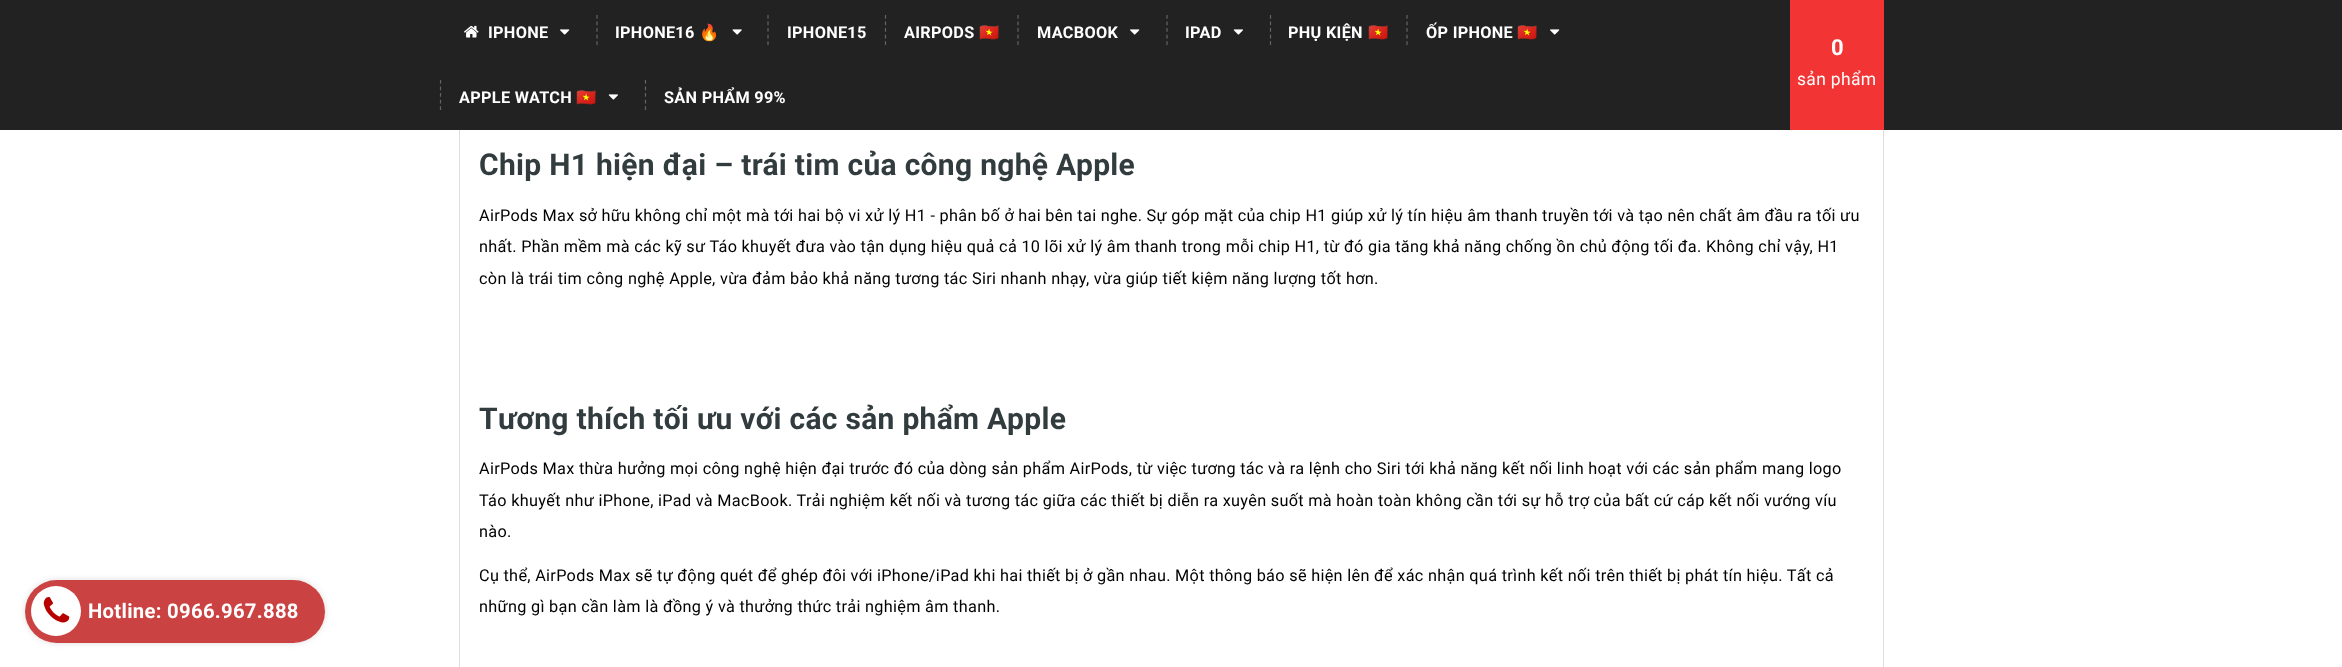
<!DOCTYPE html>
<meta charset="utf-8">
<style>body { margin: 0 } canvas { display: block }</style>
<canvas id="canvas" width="2342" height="667"></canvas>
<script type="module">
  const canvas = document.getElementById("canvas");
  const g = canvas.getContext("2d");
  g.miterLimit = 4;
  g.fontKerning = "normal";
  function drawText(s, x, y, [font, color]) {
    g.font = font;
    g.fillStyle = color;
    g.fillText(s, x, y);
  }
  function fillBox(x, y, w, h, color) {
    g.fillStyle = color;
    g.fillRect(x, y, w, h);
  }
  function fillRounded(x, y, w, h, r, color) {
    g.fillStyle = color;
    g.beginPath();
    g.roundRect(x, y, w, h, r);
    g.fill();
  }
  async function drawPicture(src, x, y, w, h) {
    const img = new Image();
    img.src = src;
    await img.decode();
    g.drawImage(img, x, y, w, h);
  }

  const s1 = ["bold 16.25px Roboto", "#FFFFFF"];
  const s2 = ["bold 16.25px Noto Color Emoji", "#FFFFFF"];
  const s3 = ["bold 22px Roboto", "#FFFFFF"];
  const s4 = ["17.5px Roboto", "#FFFFFF"];
  const s5 = ["bold 20.25px Roboto", "#FFFFFF"];
  const s6 = ["bold 30px Roboto", "#323C3F"];
  const s7 = ["16.25px Roboto", "#000000"];

  fillBox(0, 0, 2342, 667, "#FFFFFF");
  g.strokeStyle = "#DEDEDE";
  g.strokeRect(459.5, -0.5, 1424, 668);
  fillBox(0, 0, 2342, 130, "#222222");
  await drawPicture("pic1.png", 464, 25, 15, 13);
  g.letterSpacing = "0.31px";
  drawText("IPHONE", 488, 38, s1);
  await drawPicture("pic2.png", 560, 29, 10, 6);
  g.beginPath();
  g.moveTo(597, 15);
  g.lineTo(597, 45);
  g.strokeStyle = "#646464";
  g.lineWidth = 1.2;
  g.setLineDash([3.75, 2.81]);
  g.stroke();
  drawText("IPHONE16", 615, 38, s1);
  drawText("🔥", 699, 38, s2);
  await drawPicture("pic3.png", 732, 29, 10, 6);
  g.beginPath();
  g.moveTo(768, 15);
  g.lineTo(768, 45);
  g.stroke();
  drawText("IPHONE15", 787, 38, s1);
  g.beginPath();
  g.moveTo(885.5, 15);
  g.lineTo(885.5, 45);
  g.stroke();
  drawText("AIRPODS", 904, 38, s1);
  drawText("🇻🇳", 979, 38, s2);
  g.beginPath();
  g.moveTo(1018, 15);
  g.lineTo(1018, 45);
  g.stroke();
  drawText("MACBOOK", 1037, 38, s1);
  await drawPicture("pic2.png", 1130, 29, 10, 6);
  g.beginPath();
  g.moveTo(1167, 15);
  g.lineTo(1167, 45);
  g.stroke();
  drawText("IPAD", 1185, 38, s1);
  await drawPicture("pic4.png", 1233, 29, 10, 6);
  g.beginPath();
  g.moveTo(1270.5, 15);
  g.lineTo(1270.5, 45);
  g.stroke();
  drawText("PHỤ KIỆN", 1288, 38, s1);
  drawText("🇻🇳", 1368, 38, s2);
  g.beginPath();
  g.moveTo(1407, 15);
  g.lineTo(1407, 45);
  g.stroke();
  drawText("ỐP IPHONE", 1426, 38, s1);
  drawText("🇻🇳", 1517, 38, s2);
  await drawPicture("pic2.png", 1550, 29, 10, 6);
  fillBox(1790, 0, 94, 130, "#F23534");
  drawText("0", 1831, 55, s3);
  drawText("sản phẩm", 1797, 85, s4);
  g.beginPath();
  g.moveTo(440.5, 80);
  g.lineTo(440.5, 110);
  g.stroke();
  drawText("APPLE WATCH", 459, 103, s1);
  drawText("🇻🇳", 576, 103, s2);
  await drawPicture("pic4.png", 608, 94, 10, 6);
  g.beginPath();
  g.moveTo(645.5, 80);
  g.lineTo(645.5, 110);
  g.stroke();
  drawText("SẢN PHẨM 99%", 664, 103, s1);
  g.save();
  g.beginPath();
  g.moveTo(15, 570);
  g.lineTo(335, 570);
  g.lineTo(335, 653);
  g.lineTo(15, 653);
  g.closePath();
  g.moveTo(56.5, 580);
  g.lineTo(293.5, 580);
  g.bezierCurveTo(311, 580, 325, 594, 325, 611.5);
  g.bezierCurveTo(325, 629, 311, 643, 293.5, 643);
  g.lineTo(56.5, 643);
  g.bezierCurveTo(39, 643, 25, 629, 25, 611.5);
  g.bezierCurveTo(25, 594, 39, 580, 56.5, 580);
  g.closePath();
  g.clip("evenodd");
  g.fillStyle = "#DDDDDD";
  g.filter = "blur(3px)";
  g.beginPath();
  g.roundRect(25, 580, 300, 63, 31.5);
  g.fill();
  g.filter = "none";
  g.restore();
  fillRounded(25, 580, 300, 63, 31.5, "rgba(183, 1, 0, 0.74)");
  g.fillStyle = "#FFFFFF";
  g.beginPath();
  g.arc(56, 611, 25, 0, Math.PI * 2);
  g.fill();
  await drawPicture("pic5.png", 43, 597, 27, 26);
  drawText("Hotline: 0966.967.888", 88, 618, s5);
  g.letterSpacing = "0.3px";
  drawText("Chip H1 hiện đại – trái tim của công nghệ Apple", 479, 175, s6);
  g.letterSpacing = "0.31px";
  drawText("AirPods Max sở hữu không chỉ một mà tới hai bộ vi xử lý H1 - phân bố ở hai bên tai nghe. Sự góp mặt của chip H1 giúp xử lý tín hiệu âm thanh truyền tới và tạo nên chất âm đầu ra tối ưu", 479, 221, s7);
  drawText("nhất. Phần mềm mà các kỹ sư Táo khuyết đưa vào tận dụng hiệu quả cả 10 lõi xử lý âm thanh trong mỗi chip H1, từ đó gia tăng khả năng chống ồn chủ động tối đa. Không chỉ vậy, H1", 479, 252, s7);
  drawText("còn là trái tim công nghệ Apple, vừa đảm bảo khả năng tương tác Siri nhanh nhạy, vừa giúp tiết kiệm năng lượng tốt hơn.", 479, 284, s7);
  g.letterSpacing = "0.3px";
  drawText("Tương thích tối ưu với các sản phẩm Apple", 479, 429, s6);
  g.letterSpacing = "0.31px";
  drawText("AirPods Max thừa hưởng mọi công nghệ hiện đại trước đó của dòng sản phẩm AirPods, từ việc tương tác và ra lệnh cho Siri tới khả năng kết nối linh hoạt với các sản phẩm mang logo", 479, 474, s7);
  drawText("Táo khuyết như iPhone, iPad và MacBook. Trải nghiệm kết nối và tương tác giữa các thiết bị diễn ra xuyên suốt mà hoàn toàn không cần tới sự hỗ trợ của bất cứ cáp kết nối vướng víu", 479, 506, s7);
  drawText("nào.", 479, 537, s7);
  drawText("Cụ thể, AirPods Max sẽ tự động quét để ghép đôi với iPhone/iPad khi hai thiết bị ở gần nhau. Một thông báo sẽ hiện lên để xác nhận quá trình kết nối trên thiết bị phát tín hiệu. Tất cả", 479, 581, s7);
  drawText("những gì bạn cần làm là đồng ý và thưởng thức trải nghiệm âm thanh.", 479, 612, s7);
</script>
